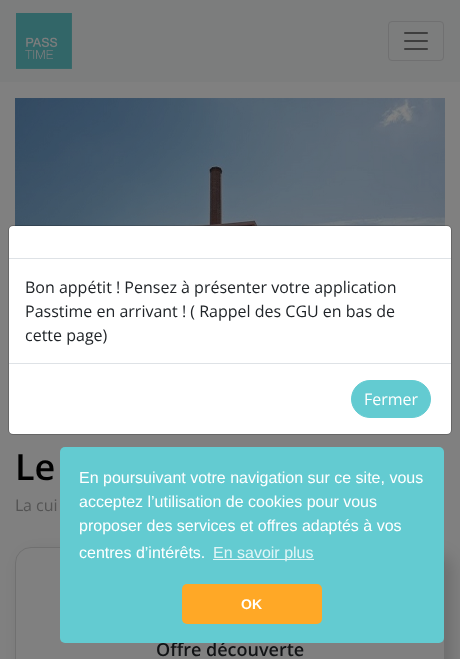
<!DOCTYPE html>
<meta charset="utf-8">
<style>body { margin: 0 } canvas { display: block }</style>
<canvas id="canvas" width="460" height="659"></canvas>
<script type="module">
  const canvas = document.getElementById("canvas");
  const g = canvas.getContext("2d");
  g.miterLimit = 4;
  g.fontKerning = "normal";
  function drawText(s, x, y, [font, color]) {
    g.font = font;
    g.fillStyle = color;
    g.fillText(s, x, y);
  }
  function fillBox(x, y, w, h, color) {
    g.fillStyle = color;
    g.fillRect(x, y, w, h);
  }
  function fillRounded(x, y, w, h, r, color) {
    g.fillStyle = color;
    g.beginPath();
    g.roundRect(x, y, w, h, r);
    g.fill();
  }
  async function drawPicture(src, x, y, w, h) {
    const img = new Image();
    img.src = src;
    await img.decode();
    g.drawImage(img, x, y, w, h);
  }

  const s1 = ["16px Open Sans", "#212529"];
  const s2 = ["16px Open Sans", "#FFFFFF"];
  const s3 = ["600 36px Open Sans", "#000000"];
  const s4 = ["16px Noto Sans", "#545454"];
  const s5 = ["16px Open Sans", "#545454"];
  const s6 = ["600 18px Open Sans", "#111315"];
  const s7 = ["16px Liberation Sans", "#FFFFFF"];
  const s8 = ["16px Liberation Sans", "#E0F5F6"];
  const s9 = ["bold 14px Liberation Sans", "#FFFFFF"];

  fillBox(0, 0, 460, 659, "#808080");
  fillBox(0, 0, 460, 82, "#7C7D7D");
  await drawPicture("pic1.png", 16, 13, 56, 56);
  g.beginPath();
  g.roundRect(388.5, 21.5, 55, 39, 3.5);
  g.strokeStyle = "#707071";
  g.stroke();
  await drawPicture("pic2.png", 404, 32, 24, 18);
  fillRounded(9, 226, 442, 208, 4, "#FFFFFF");
  await drawPicture("pic3.png", 15, 98, 430, 128);
  g.beginPath();
  g.roundRect(8.5, 225.5, 443, 209, 4.5);
  g.strokeStyle = "rgba(0, 0, 0, 0.2)";
  g.stroke();
  fillBox(9, 258, 442, 1, "#DEE2E6");
  drawText("Bon appétit ! Pensez à présenter votre application", 25, 293, s1);
  drawText("Passtime en arrivant ! ( Rappel des CGU en bas de", 25, 317, s1);
  drawText("cette page)", 25, 341, s1);
  fillBox(9, 363, 442, 1, "#DEE2E6");
  g.fillStyle = "#63CBD1";
  g.beginPath();
  g.roundRect(351.5, 380.5, 79, 37, 18.5);
  g.fill();
  g.strokeStyle = "#63CBD1";
  g.stroke();
  drawText("Fermer", 364, 405, s2);
  drawText("Le", 15, 480, s3);
  drawText("L", 15, 511, s4);
  drawText("a cui", 23, 511, s5);
  g.fillStyle = "rgba(0, 0, 0, 0.15)";
  g.filter = "blur(8px)";
  g.beginPath();
  g.roundRect(22, 554, 430, 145, 16);
  g.fill();
  g.filter = "none";
  fillRounded(15, 547, 430, 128, 16, "#808080");
  g.beginPath();
  g.roundRect(15.5, 547.5, 429, 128, 15.5);
  g.strokeStyle = "rgba(0, 0, 0, 0.12)";
  g.stroke();
  drawText("Offre découverte", 156, 656, s6);
  fillRounded(60, 447, 384, 196, 5, "#63CBD1");
  drawText("En poursuivant votre navigation sur ce site, vous", 79, 483, s7);
  drawText("acceptez l’utilisation de cookies pour vous", 79, 507, s7);
  drawText("proposer des services et offres adaptés à vos", 79, 531, s7);
  drawText("centres d’intérêts.", 79, 558, s7);
  fillBox(213, 559, 101, 1, "#E0F5F6");
  drawText("En savoir plus", 213, 558, s8);
  fillRounded(182, 584, 140, 40, 5, "#FFA826");
  drawText("OK", 241, 609, s9);
</script>
